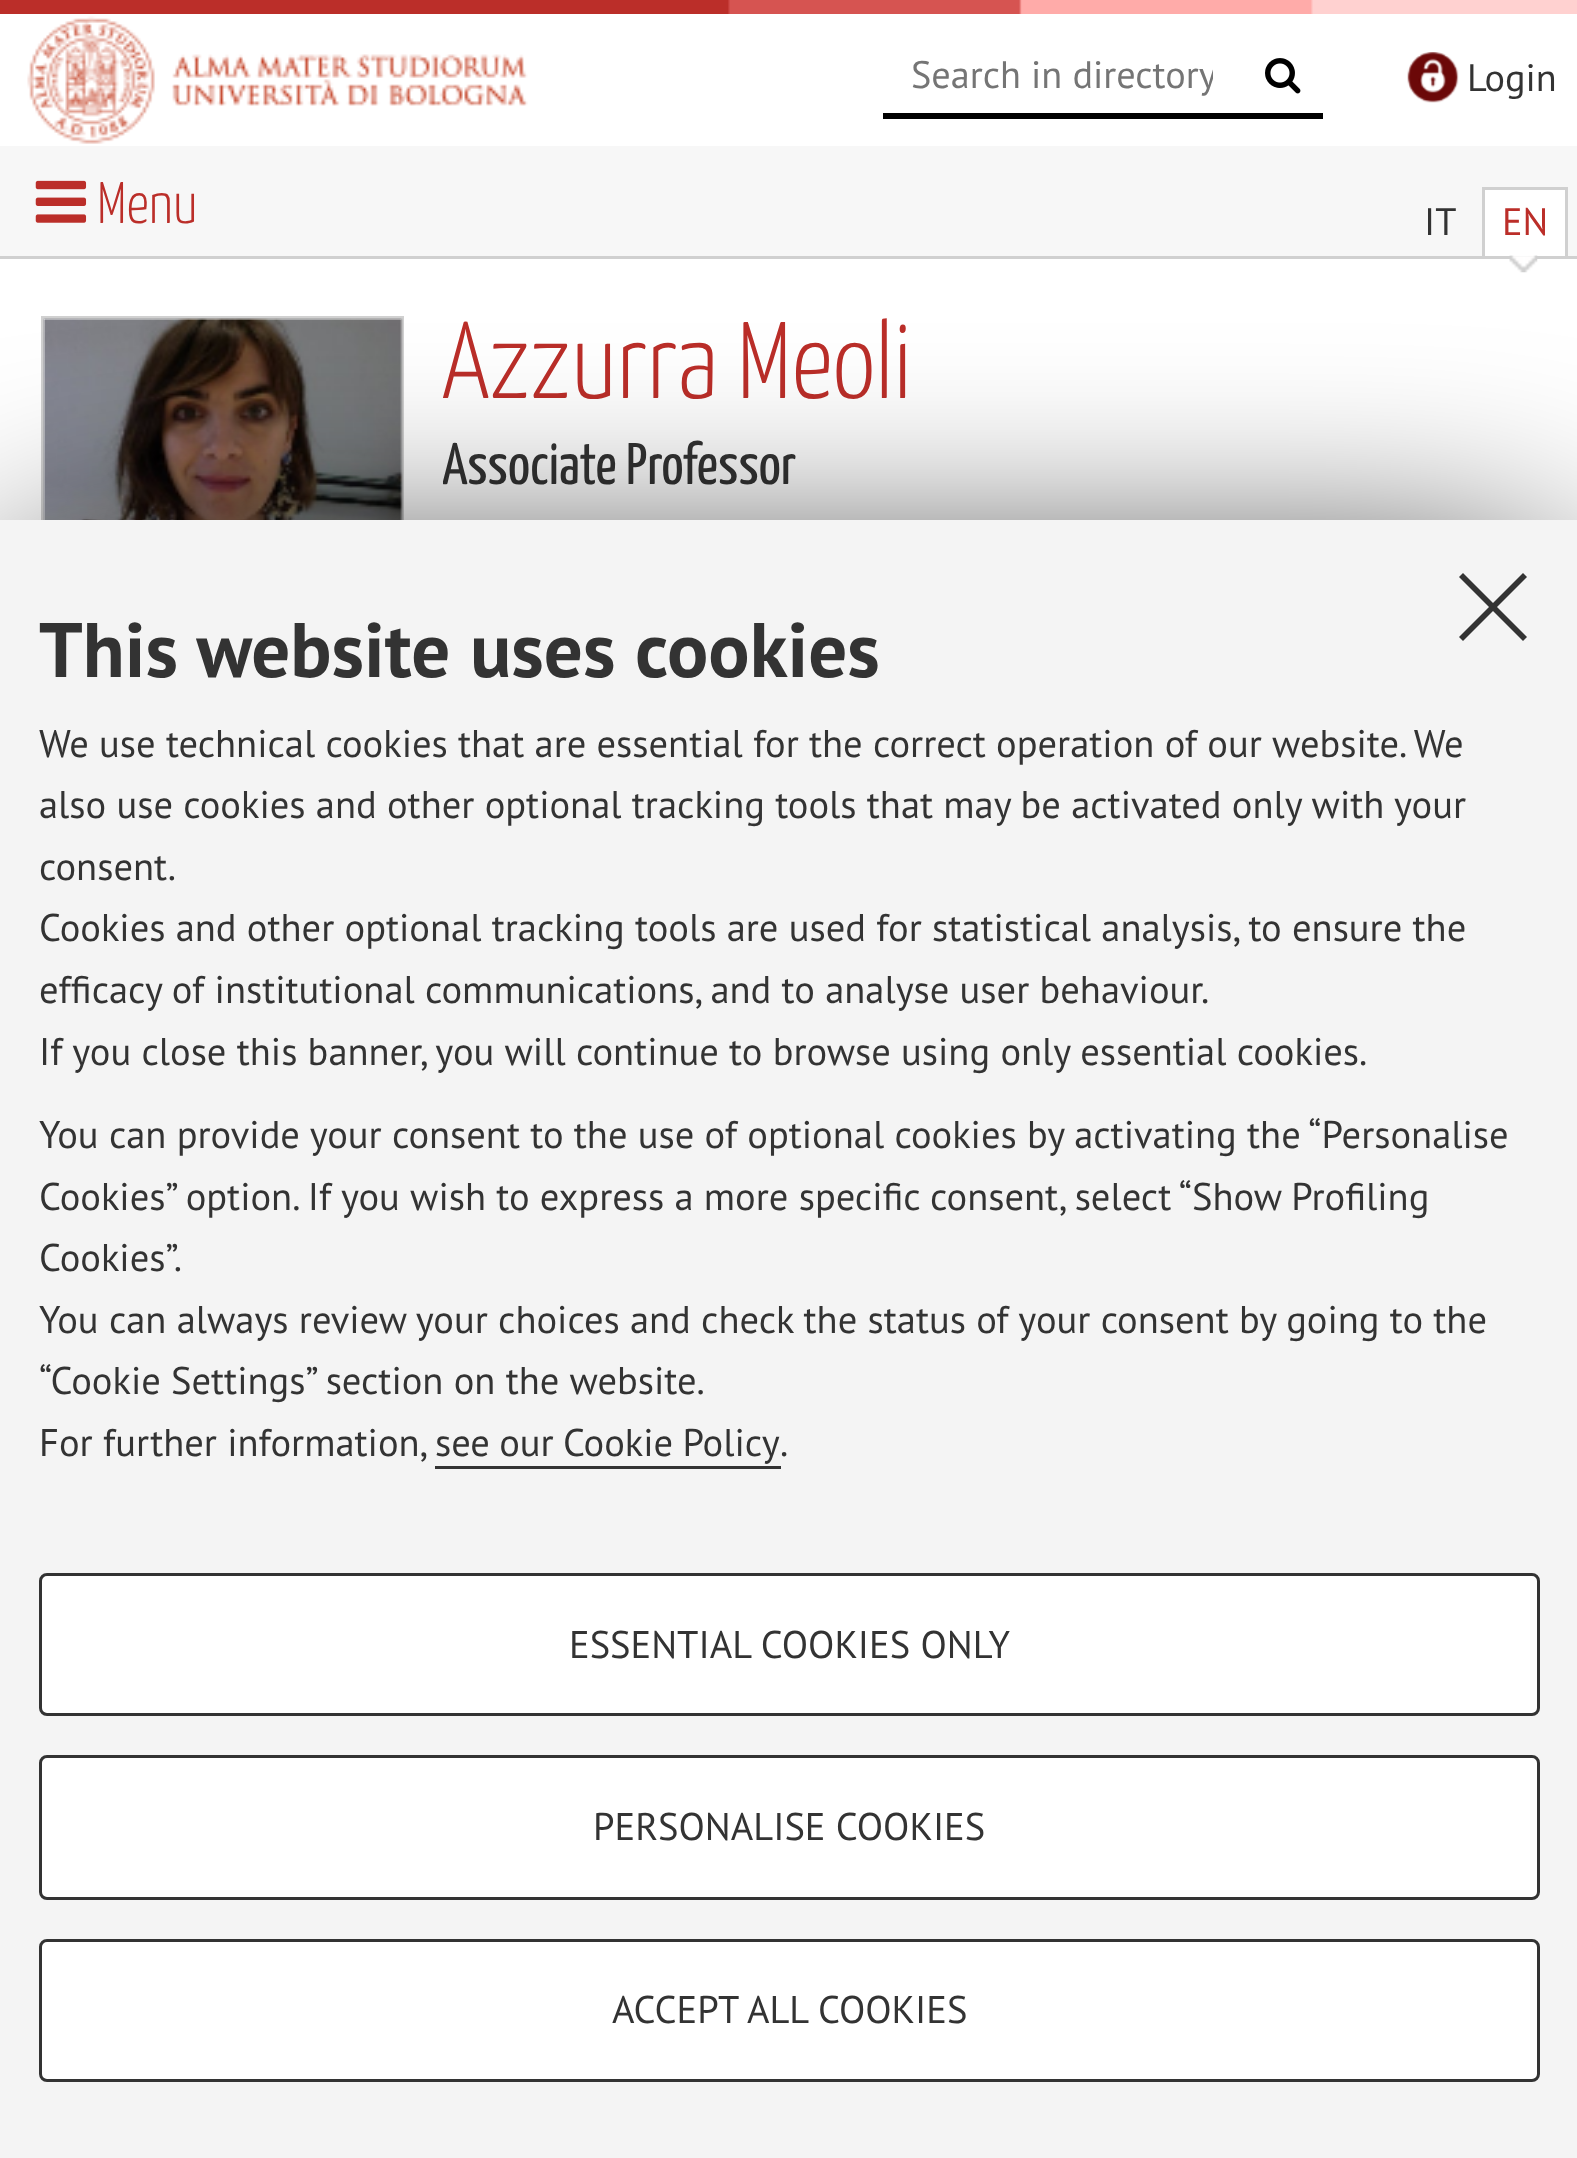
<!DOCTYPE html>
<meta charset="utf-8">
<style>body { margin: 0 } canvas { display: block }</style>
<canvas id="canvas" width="1577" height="2158"></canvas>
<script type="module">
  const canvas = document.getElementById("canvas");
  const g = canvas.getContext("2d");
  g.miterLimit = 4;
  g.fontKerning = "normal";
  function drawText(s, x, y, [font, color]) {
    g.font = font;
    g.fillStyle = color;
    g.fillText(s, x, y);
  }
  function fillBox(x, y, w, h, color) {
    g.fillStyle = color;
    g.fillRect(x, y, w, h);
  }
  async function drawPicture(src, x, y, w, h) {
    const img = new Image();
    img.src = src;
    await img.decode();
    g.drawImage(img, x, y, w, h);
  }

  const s1 = ["38.25px PT Sans", "#757575"];
  const s2 = ["38.25px PT Sans", "#333333"];
  const s3 = ["300 58.75px Yanone Kaffeesatz", "#BB2E29"];
  const s4 = ["38.25px PT Sans", "#BB2E29"];
  const s5 = ["300 108.5px Yanone Kaffeesatz", "#BB2E29"];
  const s6 = ["58.75px Yanone Kaffeesatz", "#333333"];
  const s7 = ["bold 77px PT Sans", "#333333"];
  const s8 = ["38.5px PT Sans", "#333333"];

  fillBox(0, 0, 1577, 2158, "#FFFFFF");
  await drawPicture("pic1.png", 0, 0, 1577, 14);
  await drawPicture("pic2.png", 27, 16, 501, 128);
  fillBox(883, 113, 440, 6, "#000000");
  g.save();
  g.beginPath();
  g.rect(910, 50, 303, 49);
  g.clip();
  drawText("Search in directory", 911, 88, s1);
  g.restore();
  await drawPicture("pic3.png", 1265, 58, 36, 36);
  await drawPicture("pic4.png", 1407, 52, 52, 51);
  drawText("Login", 1467, 91, s2);
  fillBox(0, 146, 1577, 110, "#F7F7F7");
  fillBox(0, 256, 1577, 3, "#D0D0D0");
  await drawPicture("pic5.png", 35, 180, 52, 43);
  drawText("Menu", 97, 223, s3);
  drawText("IT", 1424, 235, s2);
  fillBox(1485, 190, 80, 66, "#FFFFFF");
  fillBox(1482, 187, 86, 3, "#D0D0D0");
  fillBox(1565, 187, 3, 69, "#D0D0D0");
  fillBox(1482, 187, 3, 69, "#D0D0D0");
  drawText("EN", 1502, 235, s4);
  await drawPicture("pic6.png", 1509, 255, 29, 18);
  g.strokeStyle = "#D0D0D0";
  g.lineWidth = 3;
  g.strokeRect(42.5, 317.5, 360, 360);
  await drawPicture("pic7.png", 43, 318, 360, 202);
  drawText("Azzurra Meoli", 442, 398, s5);
  g.save();
  g.beginPath();
  g.rect(443, 292, 1119, 387);
  g.clip();
  drawText("Associate Professor", 442, 484, s6);
  g.restore();
  g.fillStyle = "#000000";
  g.filter = "blur(110px)";
  g.beginPath();
  g.rect(22, 586, 1535, 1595);
  g.fill();
  g.filter = "none";
  fillBox(0, 520, 1577, 1638, "#F4F4F4");
  g.fillStyle = "#333333";
  g.beginPath();
  g.moveTo(1523, 573);
  g.lineTo(1527, 577);
  g.lineTo(1463, 641);
  g.lineTo(1459, 637);
  g.closePath();
  g.fill();
  g.beginPath();
  g.moveTo(1459, 577);
  g.lineTo(1463, 573);
  g.lineTo(1527, 637);
  g.lineTo(1523, 641);
  g.closePath();
  g.fill();
  drawText("This website uses cookies", 39, 677, s7);
  drawText("We use technical cookies that are essential for the correct operation of our website. We", 39, 757, s8);
  drawText("also use cookies and other optional tracking tools that may be activated only with your", 39, 818, s8);
  drawText("consent.", 39, 880, s8);
  drawText("Cookies and other optional tracking tools are used for statistical analysis, to ensure the", 39, 941, s8);
  drawText("efficacy of institutional communications, and to analyse user behaviour.", 39, 1003, s8);
  drawText("If you close this banner, you will continue to browse using only essential cookies.", 39, 1065, s8);
  drawText("You can provide your consent to the use of optional cookies by activating the “Personalise", 39, 1148, s8);
  drawText("Cookies” option. If you wish to express a more specific consent, select “Show Profiling", 39, 1210, s8);
  drawText("Cookies”.", 39, 1271, s8);
  drawText("You can always review your choices and check the status of your consent by going to the", 39, 1333, s8);
  drawText("“Cookie Settings” section on the website.", 39, 1394, s8);
  drawText("For further information,", 39, 1456, s8);
  g.wordSpacing = "-1px";
  drawText("see our Cookie Policy", 435, 1456, s8);
  fillBox(435, 1466, 346, 3, "#333333");
  g.wordSpacing = "0px";
  drawText(".", 780, 1456, s8);
  g.fillStyle = "#FFFFFF";
  g.beginPath();
  g.roundRect(40.5, 1574.5, 1498, 140, 6.5);
  g.fill();
  g.strokeStyle = "#333333";
  g.stroke();
  drawText("ESSENTIAL COOKIES ONLY", 569, 1658, s8);
  g.fillStyle = "#FFFFFF";
  g.beginPath();
  g.roundRect(40.5, 1756.5, 1498, 142, 6.5);
  g.fill();
  g.stroke();
  drawText("PERSONALISE COOKIES", 593, 1840, s8);
  g.fillStyle = "#FFFFFF";
  g.beginPath();
  g.roundRect(40.5, 1940.5, 1498, 140, 6.5);
  g.fill();
  g.stroke();
  drawText("ACCEPT ALL COOKIES", 612, 2023, s8);
</script>
